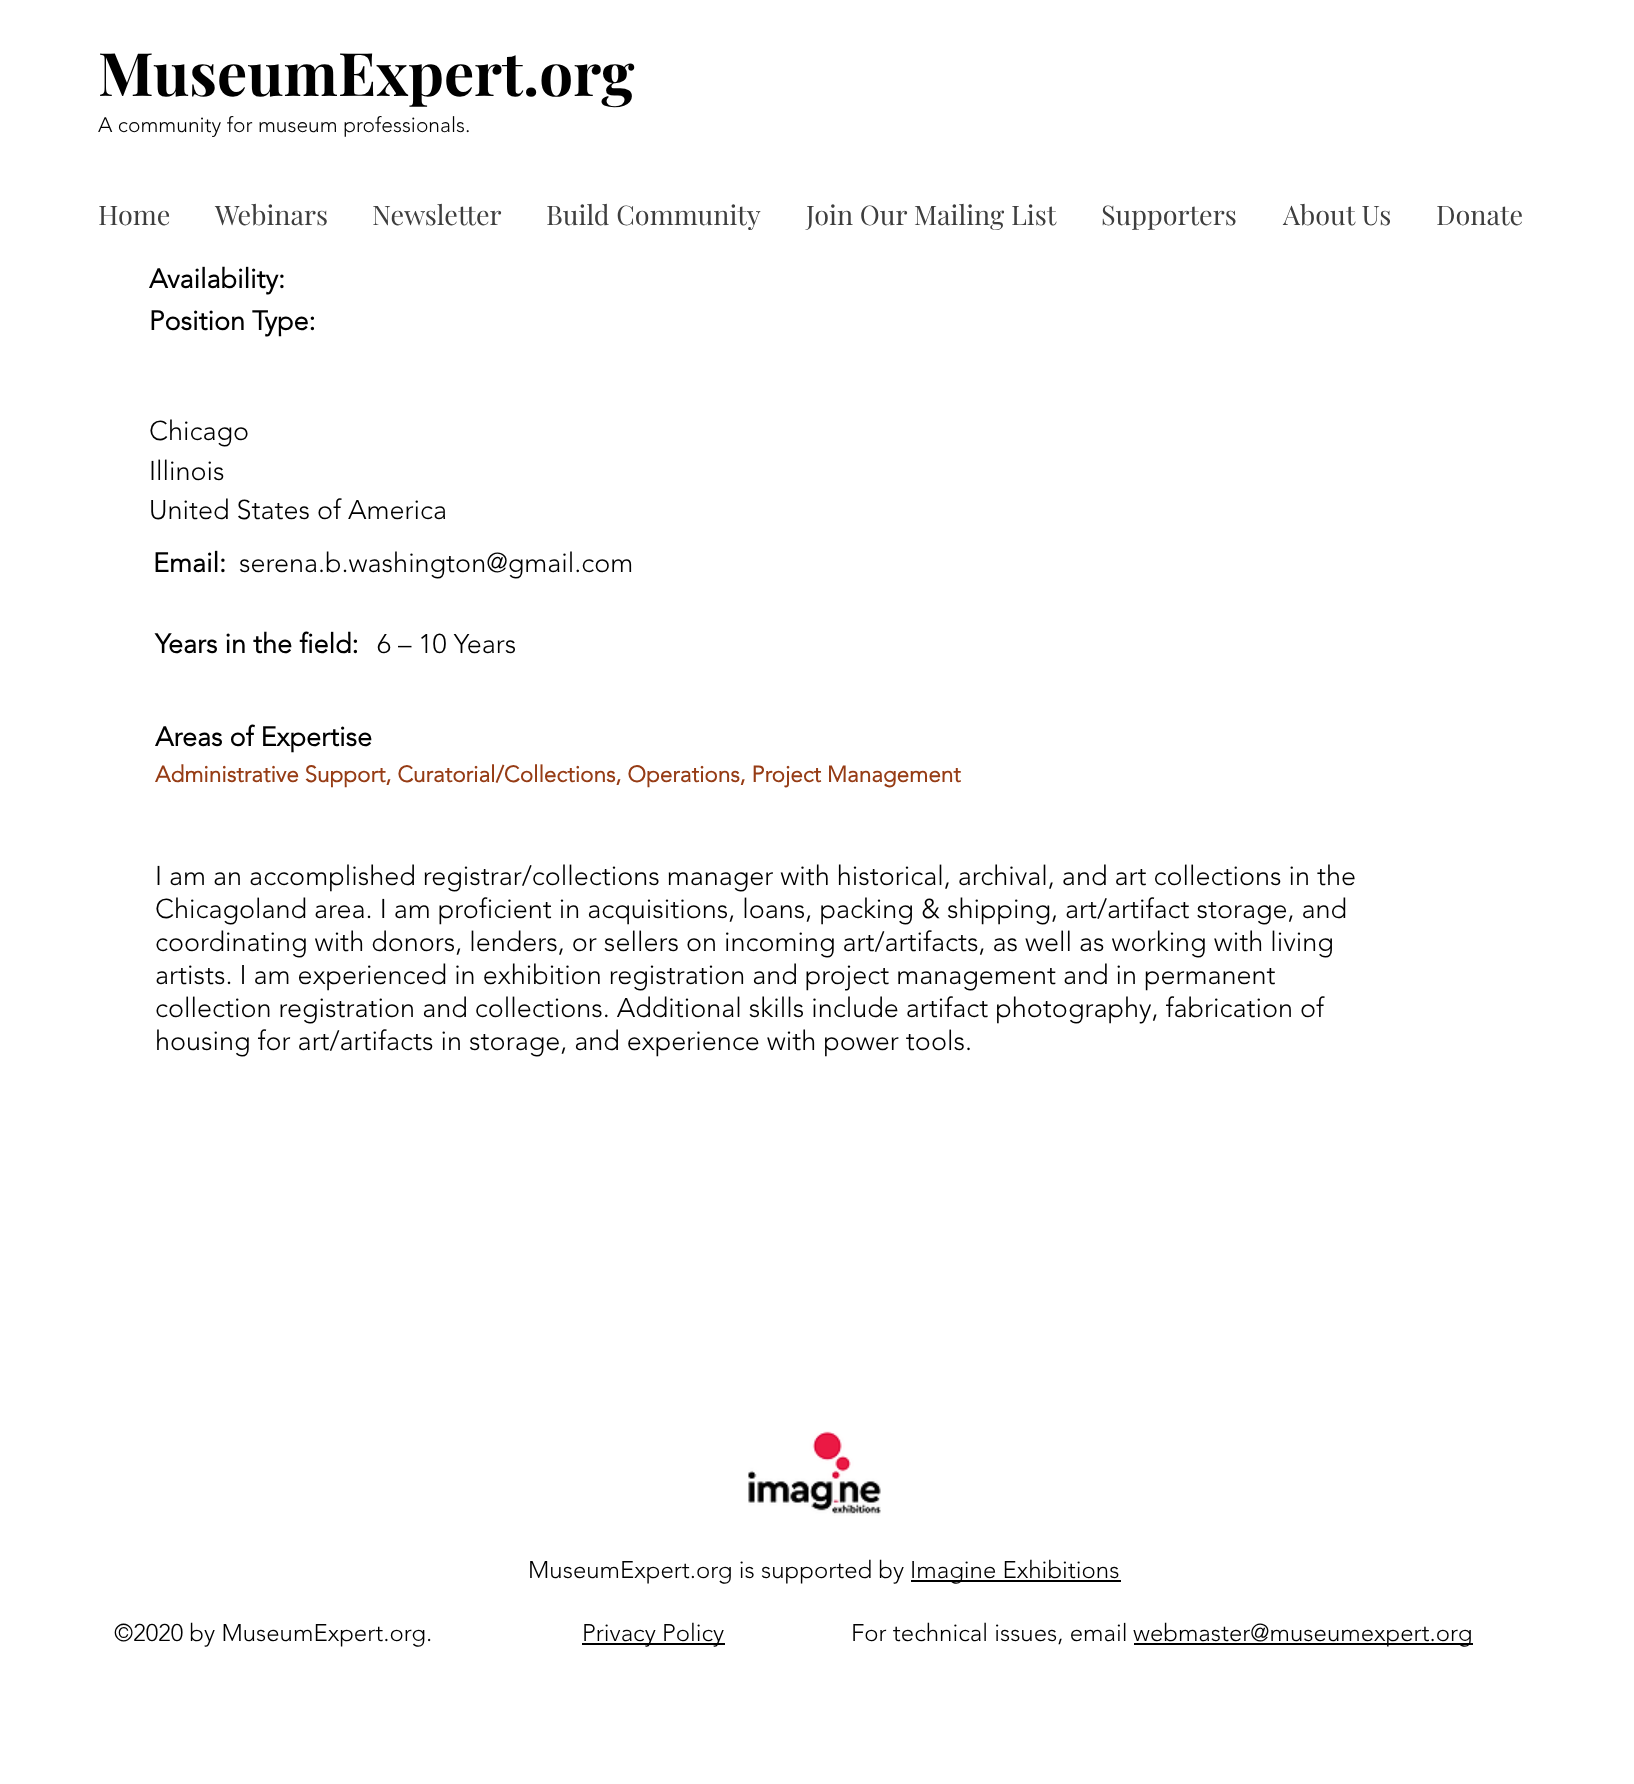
<!DOCTYPE html>
<meta charset="utf-8">
<style>body { margin: 0 } canvas { display: block }</style>
<canvas id="canvas" width="1634" height="1784"></canvas>
<script type="module">
  const canvas = document.getElementById("canvas");
  const g = canvas.getContext("2d");
  g.miterLimit = 4;
  g.fontKerning = "normal";
  function drawText(s, x, y, [font, color]) {
    g.font = font;
    g.fillStyle = color;
    g.fillText(s, x, y);
  }
  function fillBox(x, y, w, h, color) {
    g.fillStyle = color;
    g.fillRect(x, y, w, h);
  }
  async function drawPicture(src, x, y, w, h) {
    const img = new Image();
    img.src = src;
    await img.decode();
    g.drawImage(img, x, y, w, h);
  }

  const s1 = ["bold 60px Playfair Display", "#000000"];
  const s2 = ["300 21px 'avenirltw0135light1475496'", "#000000"];
  const s3 = ["27px Playfair Display", "#3E3E3E"];
  const s4 = ["bold 27px 'avenirltw0135light1475496'", "#000000"];
  const s5 = ["300 27px 'avenirltw0135light1475496'", "#000000"];
  const s6 = ["bold 22.5px 'avenirltw0135light1475496'", "#963C15"];
  const s7 = ["300 24px 'avenirltw0135light1475496'", "#000000"];

  fillBox(0, 0, 1634, 1784, "#FFFFFF");
  drawText("MuseumExpert.org", 98, 96, s1);
  drawText("A community for museum professionals.", 98, 132, s2);
  drawText("Home", 98, 225, s3);
  drawText("Webinars", 215, 225, s3);
  drawText("Newsletter", 372, 225, s3);
  drawText("Build Community", 546, 225, s3);
  drawText("Join Our Mailing List", 806, 225, s3);
  drawText("Supporters", 1101, 225, s3);
  drawText("About Us", 1283, 225, s3);
  drawText("Donate", 1436, 225, s3);
  drawText("Availability:", 149, 288, s4);
  drawText("Position Type:", 149, 330, s4);
  drawText("Chicago", 149, 440, s5);
  drawText("Illinois", 149, 480, s5);
  drawText("United States of America", 149, 519, s5);
  drawText("Email:", 153, 572, s4);
  drawText("serena.b.washington@gmail.com", 239, 572, s5);
  drawText("Years in the field:", 155, 653, s4);
  drawText("6 – 10 Years", 377, 653, s5);
  drawText("Areas of Expertise", 155, 746, s4);
  drawText("Administrative Support, Curatorial/Collections, Operations, Project Management", 155, 782, s6);
  drawText("I am an accomplished registrar/collections manager with historical, archival, and art collections in the", 155, 885, s5);
  drawText("Chicagoland area. I am proficient in acquisitions, loans, packing & shipping, art/artifact storage, and", 155, 918, s5);
  drawText("coordinating with donors, lenders, or sellers on incoming art/artifacts, as well as working with living", 155, 951, s5);
  drawText("artists. I am experienced in exhibition registration and project management and in permanent", 155, 984, s5);
  drawText("collection registration and collections. Additional skills include artifact photography, fabrication of", 155, 1017, s5);
  drawText("housing for art/artifacts in storage, and experience with power tools.", 155, 1050, s5);
  await drawPicture("pic1.png", 748, 1431, 133, 85);
  drawText("MuseumExpert.org is supported by", 528, 1578, s7);
  fillBox(911, 1580, 210, 2, "#000000");
  drawText("Imagine Exhibitions", 910, 1578, s7);
  drawText("©2020 by MuseumExpert.org.", 114, 1641, s7);
  fillBox(582, 1643, 143, 2, "#000000");
  drawText("Privacy Policy", 582, 1641, s7);
  drawText("For technical issues, email", 851, 1641, s7);
  fillBox(1134, 1643, 339, 2, "#000000");
  drawText("webmaster@museumexpert.org", 1133, 1641, s7);
</script>
